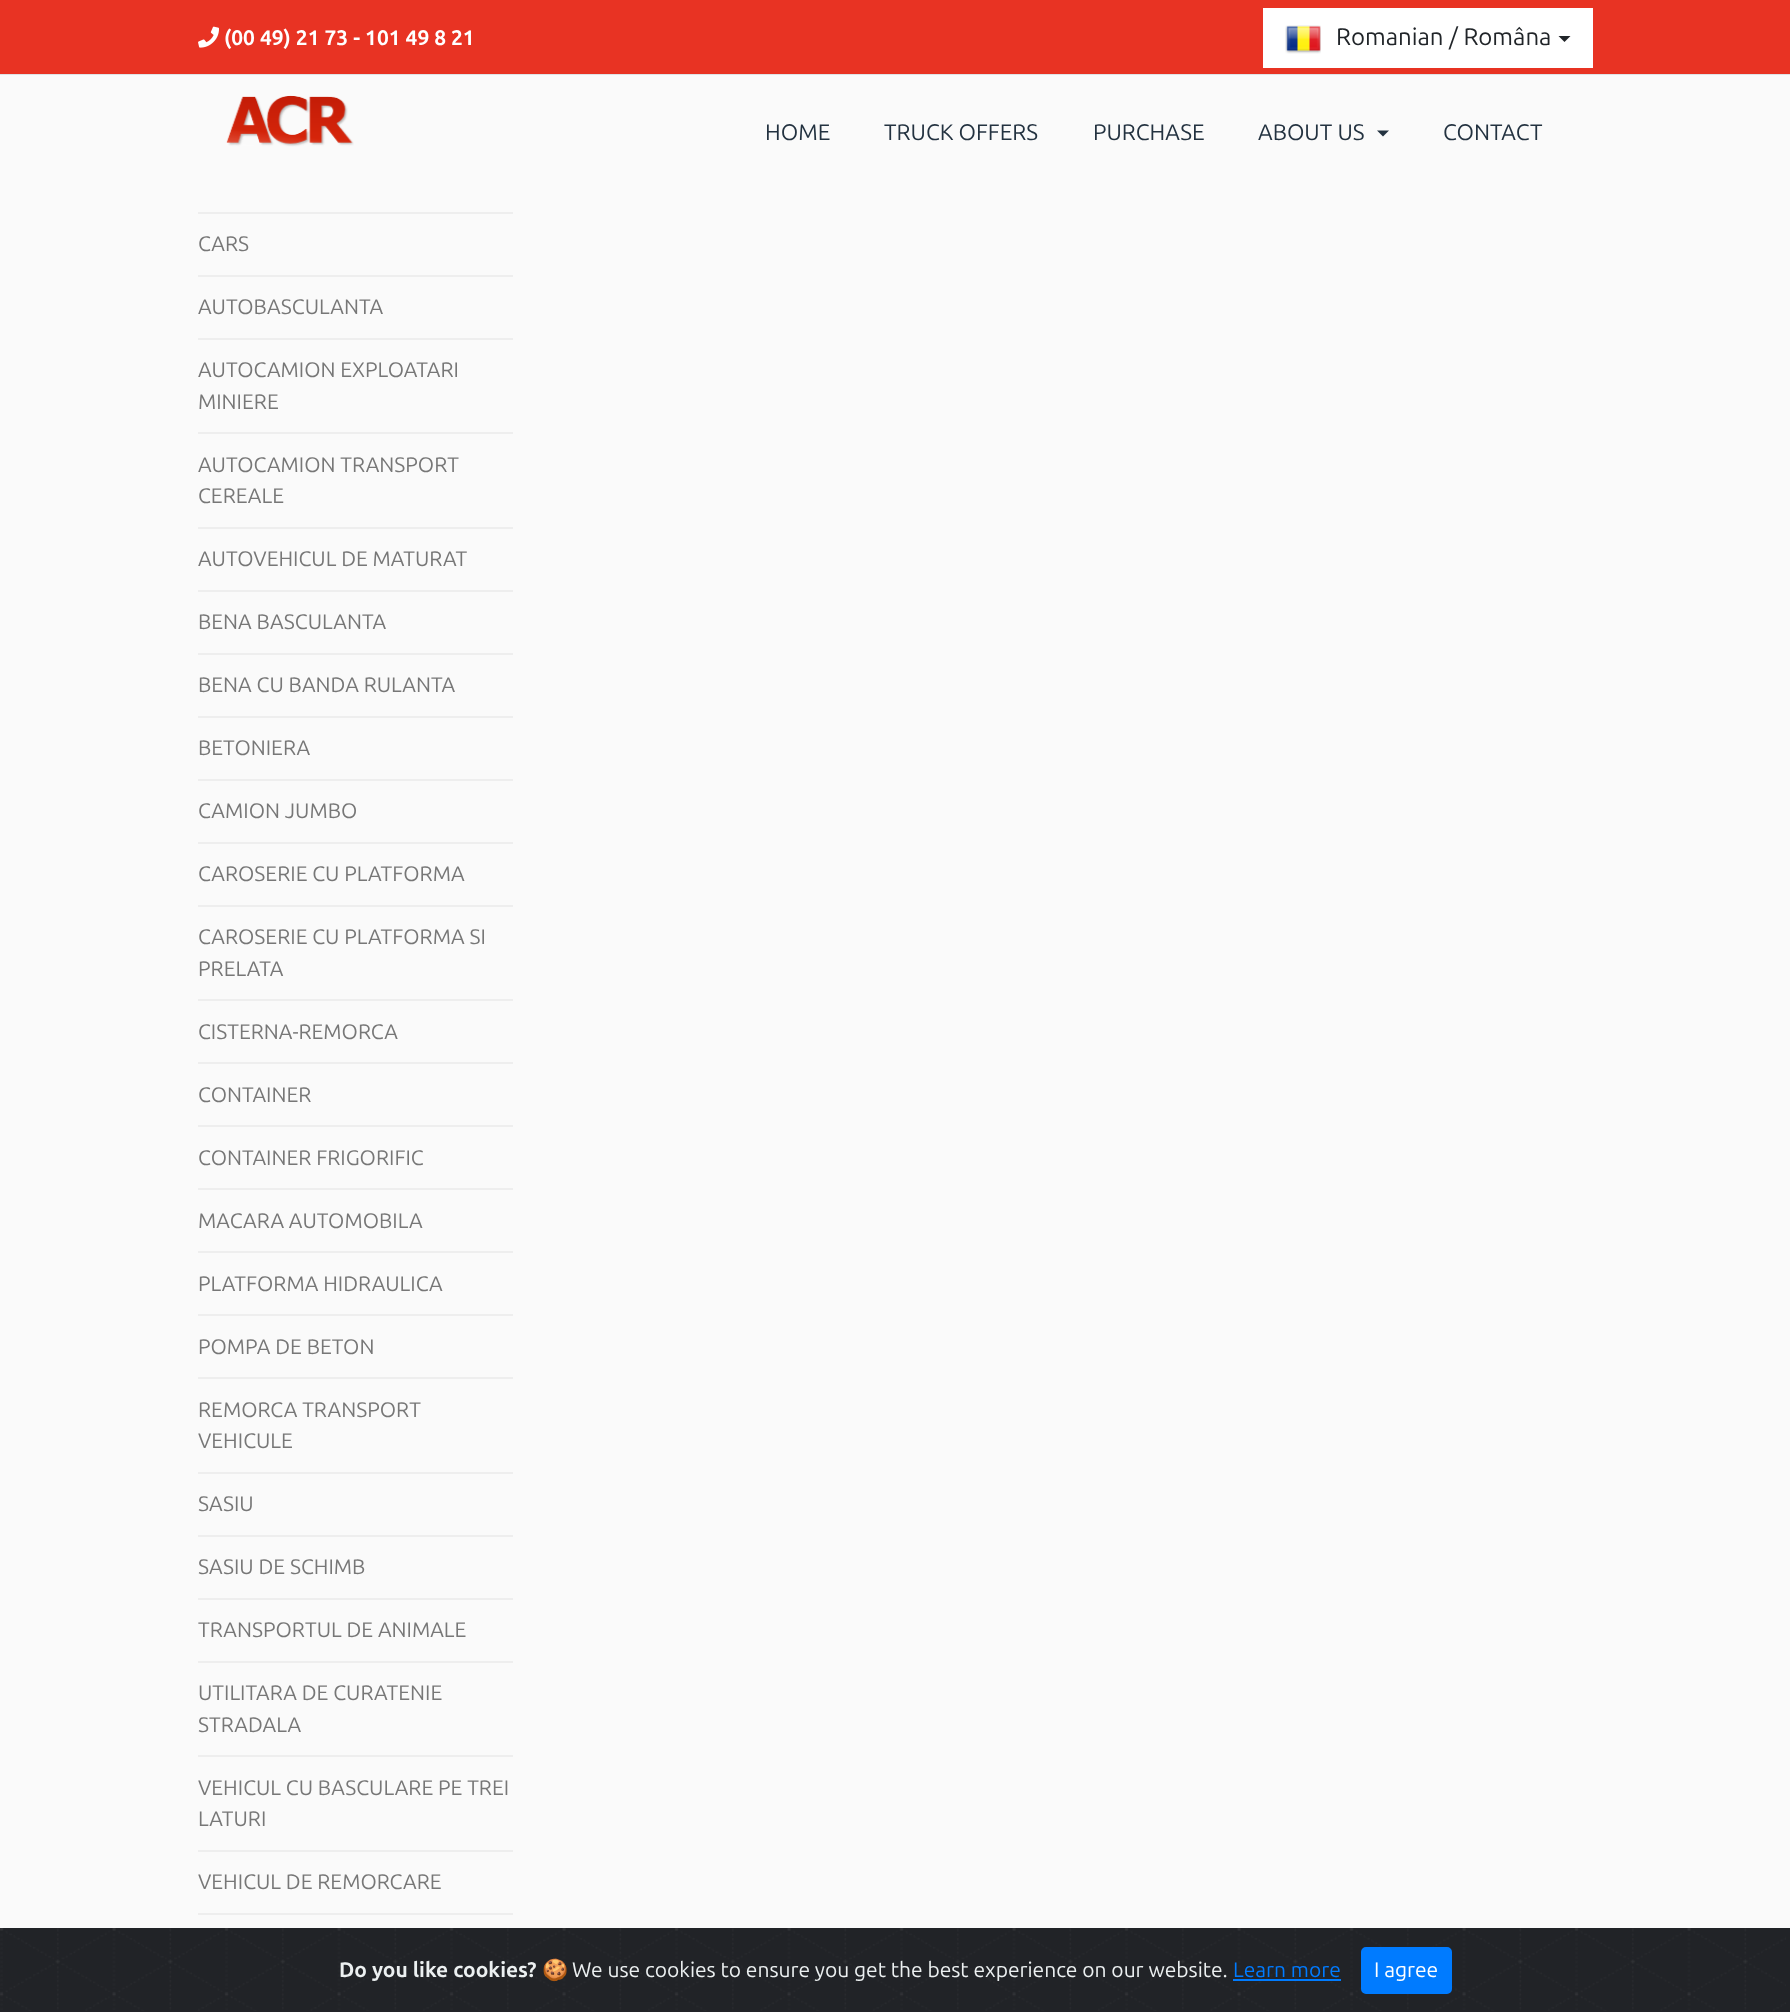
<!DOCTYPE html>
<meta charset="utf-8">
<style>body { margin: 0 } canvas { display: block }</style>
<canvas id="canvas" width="1790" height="2012"></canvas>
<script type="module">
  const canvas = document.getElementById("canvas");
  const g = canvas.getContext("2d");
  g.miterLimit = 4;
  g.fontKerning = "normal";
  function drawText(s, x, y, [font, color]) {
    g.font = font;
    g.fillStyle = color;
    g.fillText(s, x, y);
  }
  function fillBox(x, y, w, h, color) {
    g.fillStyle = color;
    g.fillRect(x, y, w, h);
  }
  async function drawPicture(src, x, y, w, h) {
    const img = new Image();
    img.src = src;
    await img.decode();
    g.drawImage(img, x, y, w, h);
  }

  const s1 = ["bold 21px Ubuntu", "#FFFFFF"];
  const s2 = ["24px Ubuntu", "#212529"];
  const s3 = ["22.5px Ubuntu", "#233240"];
  const s4 = ["21px Ubuntu", "#777777"];
  const s5 = ["bold 21px Ubuntu", "#ECF0F1"];
  const s6 = ["21px Noto Color Emoji", "#ECF0F1"];
  const s7 = ["21px Ubuntu", "#ECF0F1"];
  const s8 = ["21px Ubuntu", "#007BFF"];
  const s9 = ["21px Ubuntu", "#FFFFFF"];

  fillBox(0, 0, 1790, 2012, "#FAFAFA");
  fillBox(0, 0, 1790, 74, "#E83323");
  fillBox(0, 74, 1790, 1, "#DEE2E6");
  await drawPicture("pic1.png", 198, 26, 21, 22);
  drawText("(00 49) 21 73 - 101 49 8 21", 224, 45, s1);
  fillBox(1263, 8, 330, 60, "#FFFFFF");
  await drawPicture("pic2.png", 1285, 25, 36, 29);
  drawText("Romanian / Româna", 1336, 45, s2);
  g.beginPath();
  g.moveTo(1558.5, 36);
  g.lineTo(1570.5, 36);
  g.lineTo(1564.5, 42);
  g.closePath();
  g.fill();
  await drawPicture("pic3.png", 226, 95, 128, 52);
  drawText("HOME", 765, 140, s3);
  drawText("TRUCK OFFERS", 884, 140, s3);
  drawText("PURCHASE", 1093, 140, s3);
  drawText("ABOUT US", 1258, 140, s3);
  g.beginPath();
  g.moveTo(1377, 130.5);
  g.lineTo(1389, 130.5);
  g.lineTo(1383, 136.5);
  g.closePath();
  g.fill();
  drawText("CONTACT", 1443, 140, s3);
  fillBox(198, 212, 315, 2, "#EEEEEE");
  fillBox(198, 275, 315, 2, "#EEEEEE");
  drawText("CARS", 198, 251, s4);
  fillBox(198, 338, 315, 2, "#EEEEEE");
  drawText("AUTOBASCULANTA", 198, 314, s4);
  fillBox(198, 432, 315, 2, "#EEEEEE");
  drawText("AUTOCAMION EXPLOATARI", 198, 377, s4);
  drawText("MINIERE", 198, 409, s4);
  fillBox(198, 527, 315, 2, "#EEEEEE");
  drawText("AUTOCAMION TRANSPORT", 198, 472, s4);
  drawText("CEREALE", 198, 503, s4);
  fillBox(198, 590, 315, 2, "#EEEEEE");
  drawText("AUTOVEHICUL DE MATURAT", 198, 566, s4);
  fillBox(198, 653, 315, 2, "#EEEEEE");
  drawText("BENA BASCULANTA", 198, 629, s4);
  fillBox(198, 716, 315, 2, "#EEEEEE");
  drawText("BENA CU BANDA RULANTA", 198, 692, s4);
  fillBox(198, 779, 315, 2, "#EEEEEE");
  drawText("BETONIERA", 198, 755, s4);
  fillBox(198, 842, 315, 2, "#EEEEEE");
  drawText("CAMION JUMBO", 198, 818, s4);
  fillBox(198, 905, 315, 2, "#EEEEEE");
  drawText("CAROSERIE CU PLATFORMA", 198, 881, s4);
  fillBox(198, 999, 315, 2, "#EEEEEE");
  drawText("CAROSERIE CU PLATFORMA SI", 198, 944, s4);
  drawText("PRELATA", 198, 976, s4);
  fillBox(198, 1062, 315, 2, "#EEEEEE");
  drawText("CISTERNA-REMORCA", 198, 1039, s4);
  fillBox(198, 1125, 315, 2, "#EEEEEE");
  drawText("CONTAINER", 198, 1102, s4);
  fillBox(198, 1188, 315, 2, "#EEEEEE");
  drawText("CONTAINER FRIGORIFIC", 198, 1165, s4);
  fillBox(198, 1251, 315, 2, "#EEEEEE");
  drawText("MACARA AUTOMOBILA", 198, 1228, s4);
  fillBox(198, 1314, 315, 2, "#EEEEEE");
  drawText("PLATFORMA HIDRAULICA", 198, 1291, s4);
  fillBox(198, 1377, 315, 2, "#EEEEEE");
  drawText("POMPA DE BETON", 198, 1354, s4);
  fillBox(198, 1472, 315, 2, "#EEEEEE");
  drawText("REMORCA TRANSPORT", 198, 1417, s4);
  drawText("VEHICULE", 198, 1448, s4);
  fillBox(198, 1535, 315, 2, "#EEEEEE");
  drawText("SASIU", 198, 1511, s4);
  fillBox(198, 1598, 315, 2, "#EEEEEE");
  drawText("SASIU DE SCHIMB", 198, 1574, s4);
  fillBox(198, 1661, 315, 2, "#EEEEEE");
  drawText("TRANSPORTUL DE ANIMALE", 198, 1637, s4);
  fillBox(198, 1755, 315, 2, "#EEEEEE");
  drawText("UTILITARA DE CURATENIE", 198, 1700, s4);
  drawText("STRADALA", 198, 1732, s4);
  fillBox(198, 1850, 315, 2, "#EEEEEE");
  drawText("VEHICUL CU BASCULARE PE TREI", 198, 1795, s4);
  drawText("LATURI", 198, 1826, s4);
  fillBox(198, 1913, 315, 2, "#EEEEEE");
  drawText("VEHICUL DE REMORCARE", 198, 1889, s4);
  fillBox(0, 1928, 1790, 84, "#212327");
  await drawPicture("pic4.png", 0, 1928, 1786, 83);
  drawText("Do you like cookies?", 339, 1977, s5);
  drawText("🍪", 542, 1977, s6);
  drawText("We use cookies to ensure you get the best experience on our website.", 572, 1977, s7);
  drawText("Learn more", 1233, 1977, s8);
  fillBox(1233, 1979, 108, 2, "#007BFF");
  g.beginPath();
  g.roundRect(1362, 1948, 89, 45, 4);
  g.fill();
  g.strokeStyle = "#007BFF";
  g.lineWidth = 2;
  g.stroke();
  drawText("I agree", 1374, 1977, s9);
</script>
